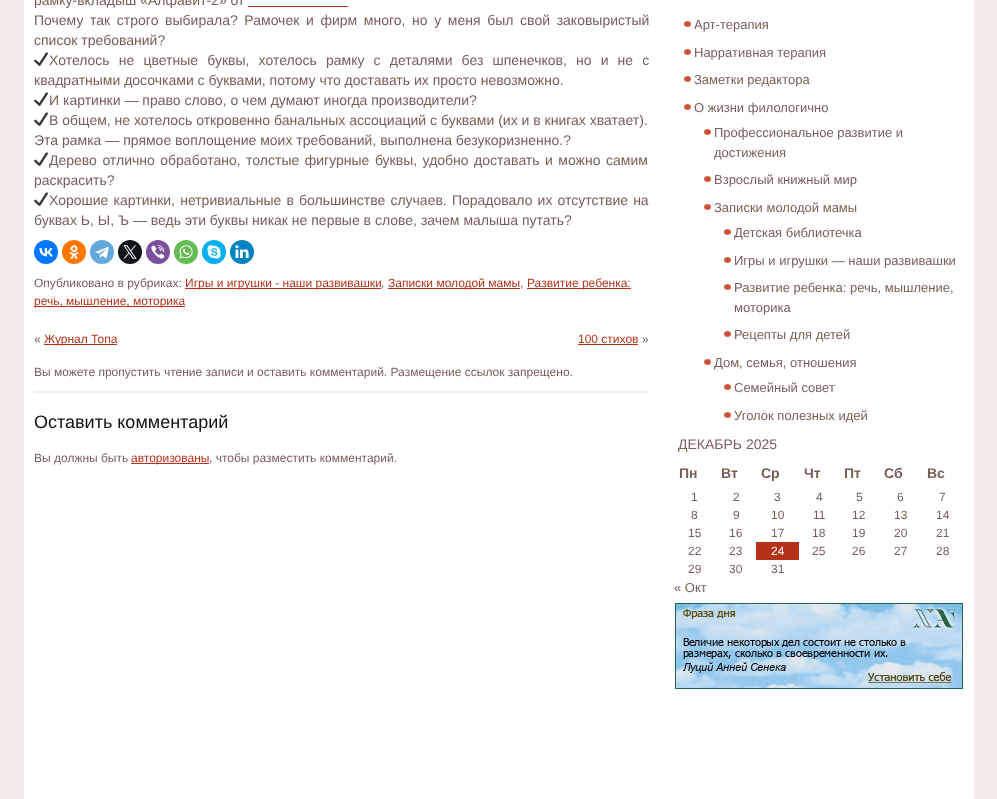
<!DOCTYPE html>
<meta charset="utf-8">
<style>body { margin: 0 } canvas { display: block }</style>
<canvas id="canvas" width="997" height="799"></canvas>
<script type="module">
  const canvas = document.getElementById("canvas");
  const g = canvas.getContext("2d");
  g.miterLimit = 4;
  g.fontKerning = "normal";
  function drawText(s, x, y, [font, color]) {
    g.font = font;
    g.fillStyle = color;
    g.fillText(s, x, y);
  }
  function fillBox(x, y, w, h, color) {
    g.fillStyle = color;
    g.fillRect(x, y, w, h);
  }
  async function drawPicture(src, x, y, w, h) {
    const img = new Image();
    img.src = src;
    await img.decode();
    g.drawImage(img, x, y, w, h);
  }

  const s1 = ["14px Liberation Sans", "#7A5D57"];
  const s2 = ["12px Liberation Sans", "#7A5D57"];
  const s3 = ["12px Liberation Sans", "#B53218"];
  const s4 = ["18px Liberation Sans", "#111111"];
  const s5 = ["13px Liberation Sans", "#7A5D57"];
  const s6 = ["bold 14px Liberation Sans", "#7A5D57"];
  const s7 = ["12px Liberation Sans", "#FFFFFF"];

  fillBox(0, 0, 997, 799, "#F5EBE9");
  fillBox(24, 0, 950, 799, "#FFFFFF");
  fillBox(34, 391, 615, 2, "#F5EBE8");
  drawText("рамку-вкладыш «Алфавит-2» от", 34, 5, s1);
  fillBox(248, 6, 100, 1, "#B53218");
  g.wordSpacing = "2.75px";
  drawText("Почему так строго выбирала? Рамочек и фирм много, но у меня был свой заковыристый", 34, 25, s1);
  g.wordSpacing = "0px";
  drawText("список требований?", 34, 45, s1);
  await drawPicture("pic1.png", 34, 52, 14, 14);
  g.wordSpacing = "5.25px";
  drawText("Хотелось не цветные буквы, хотелось рамку с деталями без шпенечков, но и не с", 49, 65, s1);
  g.wordSpacing = "0px";
  drawText("квадратными досочками с буквами, потому что доставать их просто невозможно.", 34, 85, s1);
  await drawPicture("pic1.png", 34, 92, 14, 14);
  drawText("И картинки — право слово, о чем думают иногда производители?", 49, 105, s1);
  await drawPicture("pic1.png", 34, 112, 14, 14);
  drawText("В общем, не хотелось откровенно банальных ассоциаций с буквами (их и в книгах хватает).", 49, 125, s1);
  drawText("Эта рамка — прямое воплощение моих требований, выполнена безукоризненно.?", 34, 145, s1);
  await drawPicture("pic1.png", 34, 152, 14, 14);
  g.wordSpacing = "1.6px";
  drawText("Дерево отлично обработано, толстые фигурные буквы, удобно доставать и можно самим", 49, 165, s1);
  g.wordSpacing = "0px";
  drawText("раскрасить?", 34, 185, s1);
  await drawPicture("pic1.png", 34, 192, 14, 14);
  g.wordSpacing = "1.25px";
  drawText("Хорошие картинки, нетривиальные в большинстве случаев. Порадовало их отсутствие на", 49, 205, s1);
  g.wordSpacing = "0px";
  drawText("буквах Ь, Ы, Ъ — ведь эти буквы никак не первые в слове, зачем малыша путать?", 34, 225, s1);
  g.fillStyle = "#0077FF";
  g.beginPath();
  g.arc(46, 252, 12, 0, Math.PI * 2);
  g.fill();
  await drawPicture("pic2.png", 39, 248, 14, 9);
  g.fillStyle = "#FF7700";
  g.beginPath();
  g.arc(74, 252, 12, 0, Math.PI * 2);
  g.fill();
  await drawPicture("pic3.png", 69, 245, 10, 14);
  g.fillStyle = "#64A9DC";
  g.beginPath();
  g.arc(102, 252, 12, 0, Math.PI * 2);
  g.fill();
  await drawPicture("pic4.png", 95, 247, 14, 12);
  g.fillStyle = "#0F1419";
  g.beginPath();
  g.arc(130, 252, 12, 0, Math.PI * 2);
  g.fill();
  await drawPicture("pic5.png", 123, 245, 14, 14);
  g.fillStyle = "#7B519D";
  g.beginPath();
  g.arc(158, 252, 12, 0, Math.PI * 2);
  g.fill();
  await drawPicture("pic6.png", 151, 245, 14, 14);
  g.fillStyle = "#65BC54";
  g.beginPath();
  g.arc(186, 252, 12, 0, Math.PI * 2);
  g.fill();
  await drawPicture("pic7.png", 179, 245, 14, 14);
  g.fillStyle = "#00AFF0";
  g.beginPath();
  g.arc(214, 252, 12, 0, Math.PI * 2);
  g.fill();
  await drawPicture("pic8.png", 207, 245, 14, 14);
  g.fillStyle = "#0083BE";
  g.beginPath();
  g.arc(242, 252, 12, 0, Math.PI * 2);
  g.fill();
  await drawPicture("pic9.png", 235, 245, 14, 13);
  drawText("Опубликовано в рубриках:", 34, 287, s2);
  fillBox(185, 288, 196, 1, "#B53218");
  drawText("Игры и игрушки - наши развивашки", 185, 287, s3);
  drawText(",", 381, 287, s2);
  fillBox(388, 288, 132, 1, "#B53218");
  drawText("Записки молодой мамы", 388, 287, s3);
  drawText(",", 520, 287, s2);
  fillBox(527, 288, 104, 1, "#B53218");
  drawText("Развитие ребенка:", 527, 287, s3);
  fillBox(34, 306, 151, 1, "#B53218");
  drawText("речь, мышление, моторика", 34, 305, s3);
  drawText("«", 34, 343, s2);
  fillBox(44, 344, 73, 1, "#B53218");
  drawText("Журнал Топа", 44, 343, s3);
  drawText("100 стихов", 578, 343, s3);
  fillBox(578, 344, 60, 1, "#B53218");
  drawText("»", 642, 343, s2);
  drawText("Вы можете пропустить чтение записи и оставить комментарий. Размещение ссылок запрещено.", 34, 376, s2);
  drawText("Оставить комментарий", 34, 428, s4);
  drawText("Вы должны быть", 34, 462, s2);
  fillBox(131, 463, 78, 1, "#B53218");
  drawText("авторизованы", 131, 462, s3);
  drawText(", чтобы разместить комментарий.", 209, 462, s2);
  await drawPicture("pic10.png", 684, 21, 7, 6);
  drawText("Арт-терапия", 694, 29, s5);
  await drawPicture("pic10.png", 684, 49, 7, 6);
  drawText("Нарративная терапия", 694, 57, s5);
  await drawPicture("pic10.png", 684, 76, 7, 6);
  drawText("Заметки редактора", 694, 84, s5);
  await drawPicture("pic10.png", 684, 104, 7, 6);
  drawText("О жизни филологично", 694, 112, s5);
  await drawPicture("pic10.png", 704, 129, 7, 6);
  drawText("Профессиональное развитие и", 714, 137, s5);
  drawText("достижения", 714, 157, s5);
  await drawPicture("pic10.png", 704, 176, 7, 6);
  drawText("Взрослый книжный мир", 714, 184, s5);
  await drawPicture("pic10.png", 704, 204, 7, 6);
  drawText("Записки молодой мамы", 714, 212, s5);
  await drawPicture("pic10.png", 724, 229, 7, 6);
  drawText("Детская библиотечка", 734, 237, s5);
  await drawPicture("pic10.png", 724, 257, 7, 6);
  drawText("Игры и игрушки — наши развивашки", 734, 265, s5);
  await drawPicture("pic10.png", 724, 284, 7, 6);
  drawText("Развитие ребенка: речь, мышление,", 734, 292, s5);
  drawText("моторика", 734, 312, s5);
  await drawPicture("pic10.png", 724, 331, 7, 6);
  drawText("Рецепты для детей", 734, 339, s5);
  await drawPicture("pic10.png", 704, 359, 7, 6);
  drawText("Дом, семья, отношения", 714, 367, s5);
  await drawPicture("pic10.png", 724, 384, 7, 6);
  drawText("Семейный совет", 734, 392, s5);
  await drawPicture("pic10.png", 724, 412, 7, 6);
  drawText("Уголок полезных идей", 734, 420, s5);
  drawText("ДЕКАБРЬ 2025", 678, 449, s1);
  drawText("Пн", 679, 478, s6);
  drawText("Вт", 721, 478, s6);
  drawText("Ср", 761, 478, s6);
  drawText("Чт", 804, 478, s6);
  drawText("Пт", 844, 478, s6);
  drawText("Сб", 884, 478, s6);
  drawText("Вс", 927, 478, s6);
  drawText("1", 691, 501, s2);
  drawText("2", 733, 501, s2);
  drawText("3", 774, 501, s2);
  drawText("4", 816, 501, s2);
  drawText("5", 856, 501, s2);
  drawText("6", 897, 501, s2);
  drawText("7", 939, 501, s2);
  drawText("8", 691, 519, s2);
  drawText("9", 733, 519, s2);
  drawText("10", 771, 519, s2);
  drawText("11", 813, 519, s2);
  drawText("12", 852, 519, s2);
  drawText("13", 894, 519, s2);
  drawText("14", 936, 519, s2);
  drawText("15", 688, 537, s2);
  drawText("16", 729, 537, s2);
  drawText("17", 771, 537, s2);
  drawText("18", 812, 537, s2);
  drawText("19", 852, 537, s2);
  drawText("20", 894, 537, s2);
  drawText("21", 936, 537, s2);
  drawText("22", 688, 555, s2);
  drawText("23", 729, 555, s2);
  fillBox(756, 542, 43, 18, "#B53218");
  drawText("24", 771, 555, s7);
  drawText("25", 812, 555, s2);
  drawText("26", 852, 555, s2);
  drawText("27", 894, 555, s2);
  drawText("28", 936, 555, s2);
  drawText("29", 688, 573, s2);
  drawText("30", 729, 573, s2);
  drawText("31", 771, 573, s2);
  drawText("« Окт", 674, 592, s5);
  await drawPicture("pic11.png", 675, 603, 288, 86);
</script>
